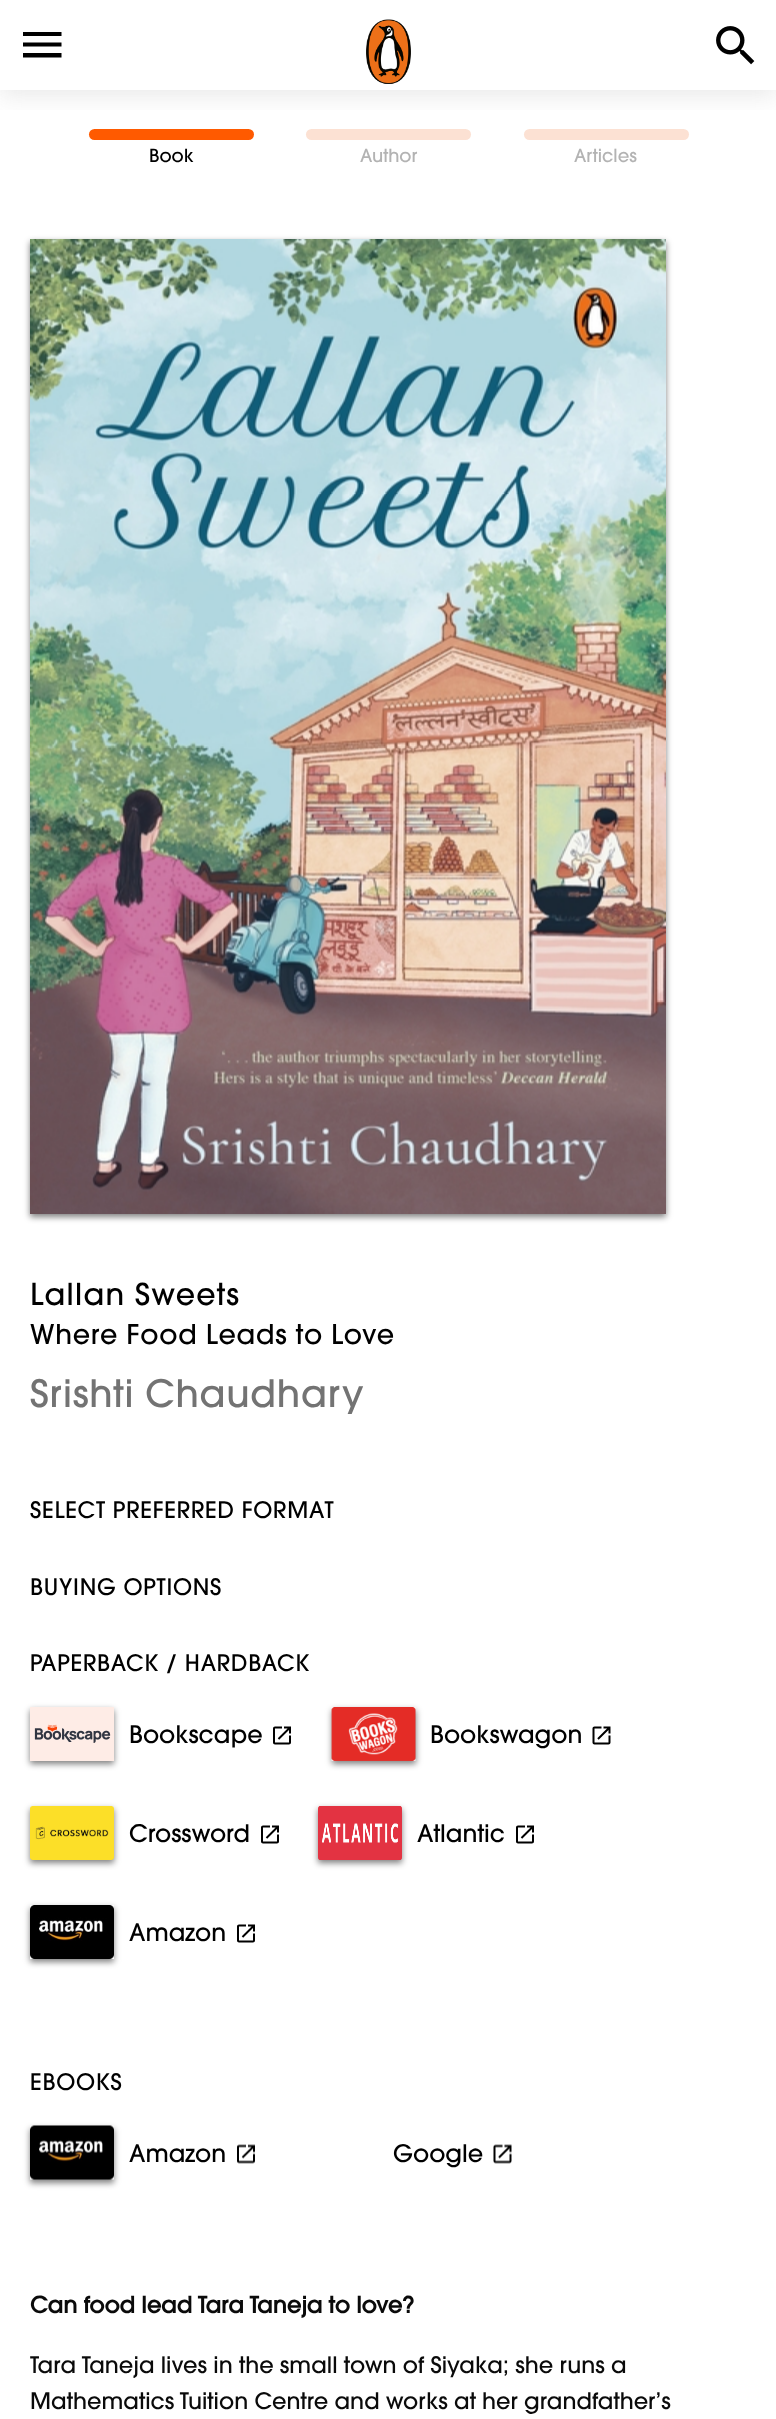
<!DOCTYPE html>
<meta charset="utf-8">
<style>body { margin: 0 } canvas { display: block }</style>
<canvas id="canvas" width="776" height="2419"></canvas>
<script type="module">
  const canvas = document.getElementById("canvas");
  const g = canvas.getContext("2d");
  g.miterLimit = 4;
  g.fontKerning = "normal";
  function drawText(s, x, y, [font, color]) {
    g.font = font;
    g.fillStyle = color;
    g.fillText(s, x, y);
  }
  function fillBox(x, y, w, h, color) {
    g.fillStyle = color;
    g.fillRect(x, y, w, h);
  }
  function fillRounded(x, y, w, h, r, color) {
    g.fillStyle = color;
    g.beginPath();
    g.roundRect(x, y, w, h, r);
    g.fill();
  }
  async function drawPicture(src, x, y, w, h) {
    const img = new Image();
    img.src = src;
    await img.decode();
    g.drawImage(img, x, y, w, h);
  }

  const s1 = ["500 18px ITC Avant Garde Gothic", "#000000"];
  const s2 = ["500 18px ITC Avant Garde Gothic", "#B3B3B3"];
  const s3 = ["500 30px ITC Avant Garde Gothic", "#000000"];
  const s4 = ["500 27px ITC Avant Garde Gothic", "#000000"];
  const s5 = ["500 37.5px ITC Avant Garde Gothic", "#737373"];
  const s6 = ["500 22.5px ITC Avant Garde Gothic", "#000000"];
  const s7 = ["500 24px ITC Avant Garde Gothic", "#000000"];
  const s8 = ["bold 22.5px ITC Avant Garde Gothic", "#0A0A0A"];
  const s9 = ["500 22.5px ITC Avant Garde Gothic", "#0A0A0A"];

  fillBox(0, 0, 776, 2419, "#FFFFFF");
  fillRounded(89, 129, 165, 11, 5.5, "#FF5A00");
  fillRounded(306, 129, 165, 11, 5.5, "#FCE1D3");
  fillRounded(524, 129, 165, 11, 5.5, "#FCE1D3");
  g.save();
  g.beginPath();
  g.rect(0, 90, 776, 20);
  g.clip();
  g.fillStyle = "rgba(119, 119, 119, 0.16)";
  g.filter = "blur(12px)";
  g.beginPath();
  g.rect(0, 6, 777, 90);
  g.fill();
  g.filter = "none";
  g.restore();
  g.save();
  g.beginPath();
  g.rect(23, 32, 39, 27);
  g.clip();
  g.fillStyle = "#000000";
  g.beginPath();
  g.moveTo(22.5, 57.5);
  g.lineTo(61.5, 57.5);
  g.lineTo(61.5, 53);
  g.lineTo(22.5, 53);
  g.closePath();
  g.moveTo(22.5, 46.5);
  g.lineTo(61.5, 46.5);
  g.lineTo(61.5, 42.5);
  g.lineTo(22.5, 42.5);
  g.closePath();
  g.moveTo(22.5, 31.5);
  g.lineTo(22.5, 36);
  g.lineTo(61.5, 36);
  g.lineTo(61.5, 31.5);
  g.closePath();
  g.fill();
  g.restore();
  await drawPicture("pic1.png", 366, 19, 45, 65);
  await drawPicture("pic2.png", 716, 26, 39, 39);
  drawText("Book", 149, 162, s1);
  drawText("Author", 360, 162, s2);
  drawText("Articles", 574, 162, s2);
  g.fillStyle = "rgba(0, 0, 0, 0.5)";
  g.filter = "blur(3px)";
  g.beginPath();
  g.rect(30, 242, 636, 975);
  g.fill();
  g.filter = "none";
  await drawPicture("pic3.png", 30, 239, 636, 975);
  g.letterSpacing = "1.25px";
  drawText("Lallan Sweets", 30, 1305, s3);
  g.letterSpacing = "0.75px";
  drawText("Where Food Leads to Love", 30, 1344, s4);
  drawText("Srishti Chaudhary", 30, 1407, s5);
  drawText("SELECT PREFERRED FORMAT", 30, 1518, s6);
  drawText("BUYING OPTIONS", 30, 1595, s6);
  drawText("PAPERBACK / HARDBACK", 30, 1671, s6);
  g.save();
  g.beginPath();
  g.moveTo(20, 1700);
  g.lineTo(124, 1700);
  g.lineTo(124, 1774);
  g.lineTo(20, 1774);
  g.closePath();
  g.moveTo(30, 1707);
  g.lineTo(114, 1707);
  g.lineTo(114, 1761);
  g.lineTo(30, 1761);
  g.closePath();
  g.clip("evenodd");
  g.fillStyle = "rgba(0, 0, 0, 0.5)";
  g.filter = "blur(3px)";
  g.beginPath();
  g.rect(30, 1710, 84, 54);
  g.fill();
  g.filter = "none";
  g.restore();
  await drawPicture("pic4.png", 30, 1707, 84, 54);
  g.letterSpacing = "0px";
  drawText("Bookscape", 129, 1743, s7);
  await drawPicture("pic5.png", 273, 1726, 18, 19);
  g.fillStyle = "rgba(0, 0, 0, 0.5)";
  g.filter = "blur(3px)";
  g.beginPath();
  g.rect(332, 1710, 84, 54);
  g.fill();
  g.filter = "none";
  await drawPicture("pic6.png", 331, 1707, 85, 54);
  drawText("Bookswagon", 430, 1743, s7);
  await drawPicture("pic7.png", 592, 1726, 19, 19);
  g.fillStyle = "rgba(0, 0, 0, 0.5)";
  g.filter = "blur(3px)";
  g.beginPath();
  g.rect(30, 1809, 84, 54);
  g.fill();
  g.filter = "none";
  await drawPicture("pic8.png", 30, 1806, 84, 54);
  drawText("Crossword", 129, 1842, s7);
  await drawPicture("pic9.png", 261, 1825, 18, 19);
  g.fillStyle = "rgba(0, 0, 0, 0.5)";
  g.filter = "blur(3px)";
  g.beginPath();
  g.rect(318, 1809, 84, 54);
  g.fill();
  g.filter = "none";
  await drawPicture("pic10.png", 318, 1806, 84, 54);
  drawText("Atlantic", 417, 1842, s7);
  await drawPicture("pic9.png", 516, 1825, 18, 19);
  g.fillStyle = "rgba(0, 0, 0, 0.5)";
  g.filter = "blur(3px)";
  g.beginPath();
  g.rect(30, 1908, 84, 54);
  g.fill();
  g.filter = "none";
  await drawPicture("pic11.png", 30, 1905, 84, 54);
  drawText("Amazon", 129, 1941, s7);
  await drawPicture("pic9.png", 237, 1924, 18, 19);
  g.letterSpacing = "0.75px";
  drawText("EBOOKS", 30, 2090, s6);
  g.fillStyle = "rgba(0, 0, 0, 0.5)";
  g.filter = "blur(3px)";
  g.beginPath();
  g.rect(30, 2129, 84, 54);
  g.fill();
  g.filter = "none";
  await drawPicture("pic12.png", 30, 2125, 84, 55);
  g.letterSpacing = "0px";
  drawText("Amazon", 129, 2162, s7);
  await drawPicture("pic13.png", 237, 2144, 18, 20);
  drawText("Google", 393, 2162, s7);
  await drawPicture("pic14.png", 493, 2144, 19, 20);
  drawText("Can food lead Tara Taneja to love?", 30, 2313, s8);
  drawText("Tara Taneja lives in the small town of Siyaka; she runs a", 30, 2373, s9);
  drawText("Mathematics Tuition Centre and works at her grandfather’s", 30, 2409, s9);
</script>
